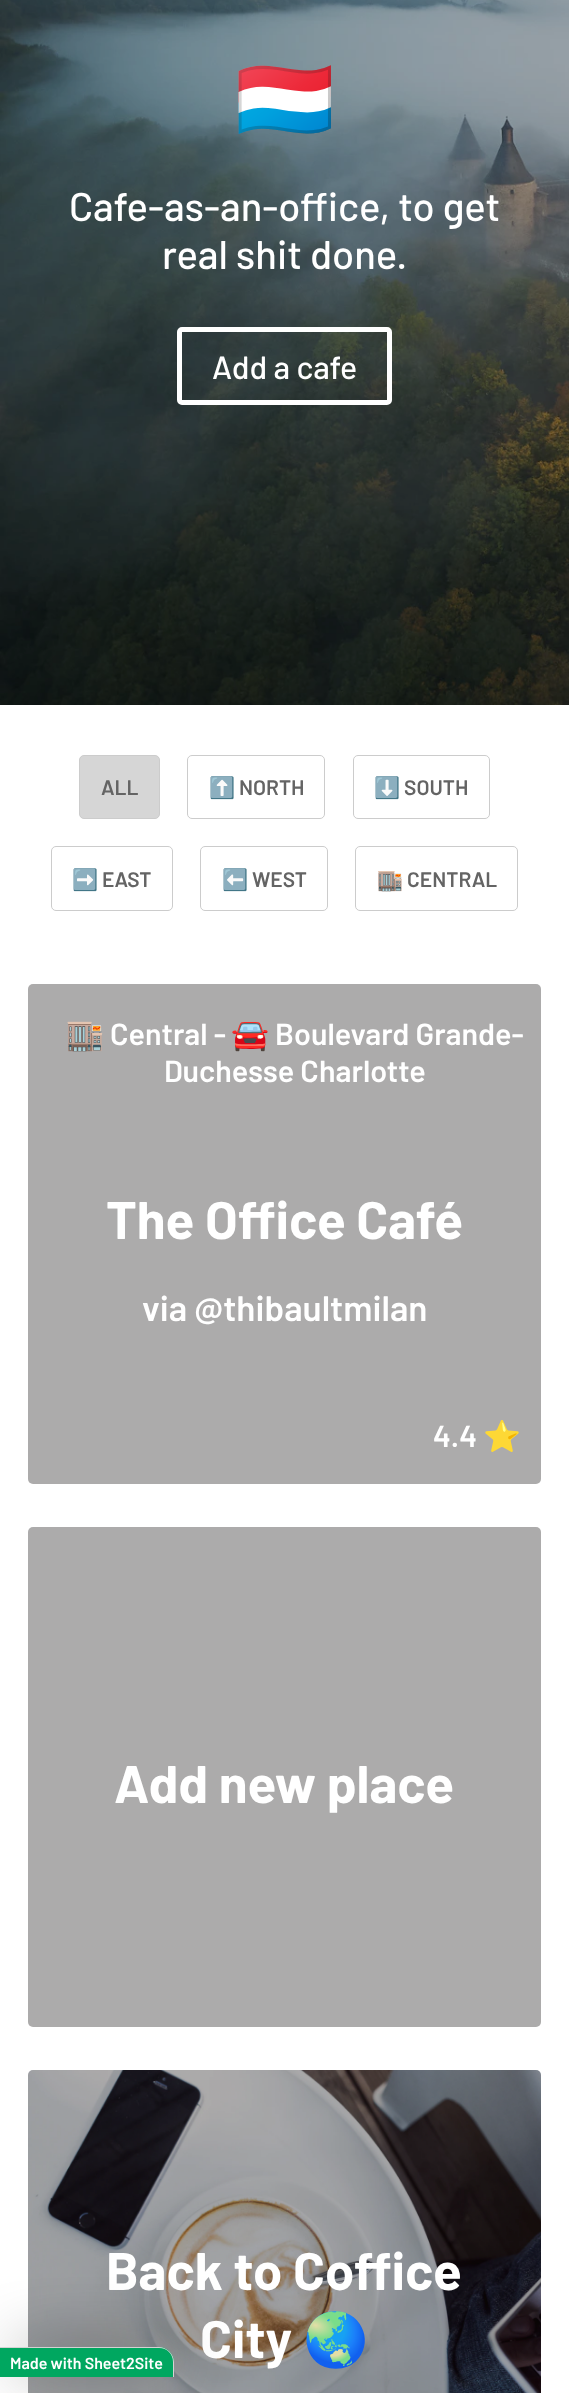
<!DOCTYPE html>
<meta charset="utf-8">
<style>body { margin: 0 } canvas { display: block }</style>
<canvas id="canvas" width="569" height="2393"></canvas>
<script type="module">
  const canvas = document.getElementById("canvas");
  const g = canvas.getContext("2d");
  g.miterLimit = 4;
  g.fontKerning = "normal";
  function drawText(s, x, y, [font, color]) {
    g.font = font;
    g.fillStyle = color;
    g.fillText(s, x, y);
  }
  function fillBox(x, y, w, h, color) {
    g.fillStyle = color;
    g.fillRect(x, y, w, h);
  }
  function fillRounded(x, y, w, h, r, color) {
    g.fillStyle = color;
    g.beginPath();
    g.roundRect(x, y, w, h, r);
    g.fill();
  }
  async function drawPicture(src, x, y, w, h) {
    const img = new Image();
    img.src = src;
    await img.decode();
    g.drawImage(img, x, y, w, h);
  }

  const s1 = ["bold 80px Noto Color Emoji", "#FFFFFF"];
  const s2 = ["500 40px Barlow", "#FFFFFF"];
  const s3 = ["500 32px Barlow", "#FFFFFF"];
  const s4 = ["600 21px Barlow", "#646464"];
  const s5 = ["bold 21px Noto Color Emoji", "#646464"];
  const s6 = ["30.5px Noto Color Emoji", "#FFFFFF"];
  const s7 = ["600 30.5px Barlow", "#FFFFFF"];
  const s8 = ["bold 52.75px Barlow", "#FFFFFF"];
  const s9 = ["600 35.25px Barlow", "#FFFFFF"];
  const s10 = ["bold 52.75px Noto Color Emoji", "#FFFFFF"];
  const s11 = ["600 16px Barlow", "#FFFFFF"];

  fillBox(0, 0, 569, 2393, "#FFFFFF");
  await drawPicture("pic1.png", 0, 0, 569, 705);
  drawText("🇱🇺", 235, 127, s1);
  drawText("Cafe-as-an-office, to get", 69, 221, s2);
  drawText("real shit done.", 162, 269, s2);
  g.beginPath();
  g.roundRect(179.5, 329.5, 210, 73, 2.5);
  g.strokeStyle = "#FFFFFF";
  g.lineWidth = 5;
  g.stroke();
  drawText("Add a cafe", 212, 379, s3);
  g.fillStyle = "#D6D6D6";
  g.beginPath();
  g.roundRect(79.5, 755.5, 80, 63, 4.5);
  g.fill();
  g.strokeStyle = "#CCCCCC";
  g.lineWidth = 1;
  g.stroke();
  drawText("ALL", 101, 795, s4);
  g.beginPath();
  g.roundRect(187.5, 755.5, 137, 63, 4.5);
  g.stroke();
  drawText("⬆️", 209, 795, s5);
  drawText("NORTH", 239, 795, s4);
  g.beginPath();
  g.roundRect(353.5, 755.5, 136, 63, 4.5);
  g.stroke();
  drawText("⬇️", 374, 795, s5);
  drawText("SOUTH", 404, 795, s4);
  g.beginPath();
  g.roundRect(51.5, 846.5, 121, 64, 4.5);
  g.stroke();
  drawText("➡️", 72, 887, s5);
  drawText("EAST", 102, 887, s4);
  g.beginPath();
  g.roundRect(200.5, 846.5, 127, 64, 4.5);
  g.stroke();
  drawText("⬅️", 222, 887, s5);
  drawText("WEST", 252, 887, s4);
  g.beginPath();
  g.roundRect(355.5, 846.5, 162, 64, 4.5);
  g.stroke();
  drawText("🏬", 377, 887, s5);
  drawText("CENTRAL", 407, 887, s4);
  fillRounded(28, 984, 513, 500, 5, "#ACABAB");
  drawText("🏬", 66, 1045, s6);
  drawText("Central -", 110, 1045, s7);
  drawText("🚘", 231, 1045, s6);
  drawText("Boulevard Grande-", 275, 1045, s7);
  drawText("Duchesse Charlotte", 164, 1082, s7);
  drawText("The Office Café", 106, 1239, s8);
  drawText("via @thibaultmilan", 142, 1321, s9);
  drawText("4.4", 433, 1447, s7);
  drawText("⭐️", 483, 1447, s6);
  fillRounded(28, 1527, 513, 500, 5, "#ACABAB");
  drawText("Add new place", 114, 1803, s8);
  await drawPicture("pic2.png", 28, 2070, 513, 323);
  fillRounded(28, 2070, 513, 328, 5, "rgba(16, 15, 15, 0.35)");
  drawText("Back to Coffice", 106, 2290, s8);
  drawText("City", 200, 2358, s8);
  drawText("🌏", 303, 2358, s10);
  g.fillStyle = "rgba(0, 0, 0, 0.75)";
  g.filter = "blur(31.5px)";
  g.beginPath();
  g.roundRect(14, 2351, 158, 14, 7);
  g.fill();
  g.filter = "none";
  g.fillStyle = "#00A760";
  g.beginPath();
  g.roundRect(0, 2347, 174, 30, [0, 15, 0, 0]);
  g.fill();
  g.fillStyle = "#D3D3D3";
  g.beginPath();
  g.moveTo(0, 2347);
  g.lineTo(159, 2347);
  g.bezierCurveTo(167, 2347, 174, 2354, 174, 2362);
  g.lineTo(174, 2377);
  g.lineTo(0, 2377);
  g.closePath();
  g.moveTo(0, 2348);
  g.lineTo(159, 2348);
  g.bezierCurveTo(167, 2348, 173, 2354, 173, 2362);
  g.lineTo(173, 2377);
  g.lineTo(0, 2377);
  g.closePath();
  g.fill("evenodd");
  drawText("Made with Sheet2Site", 10, 2369, s11);
</script>
